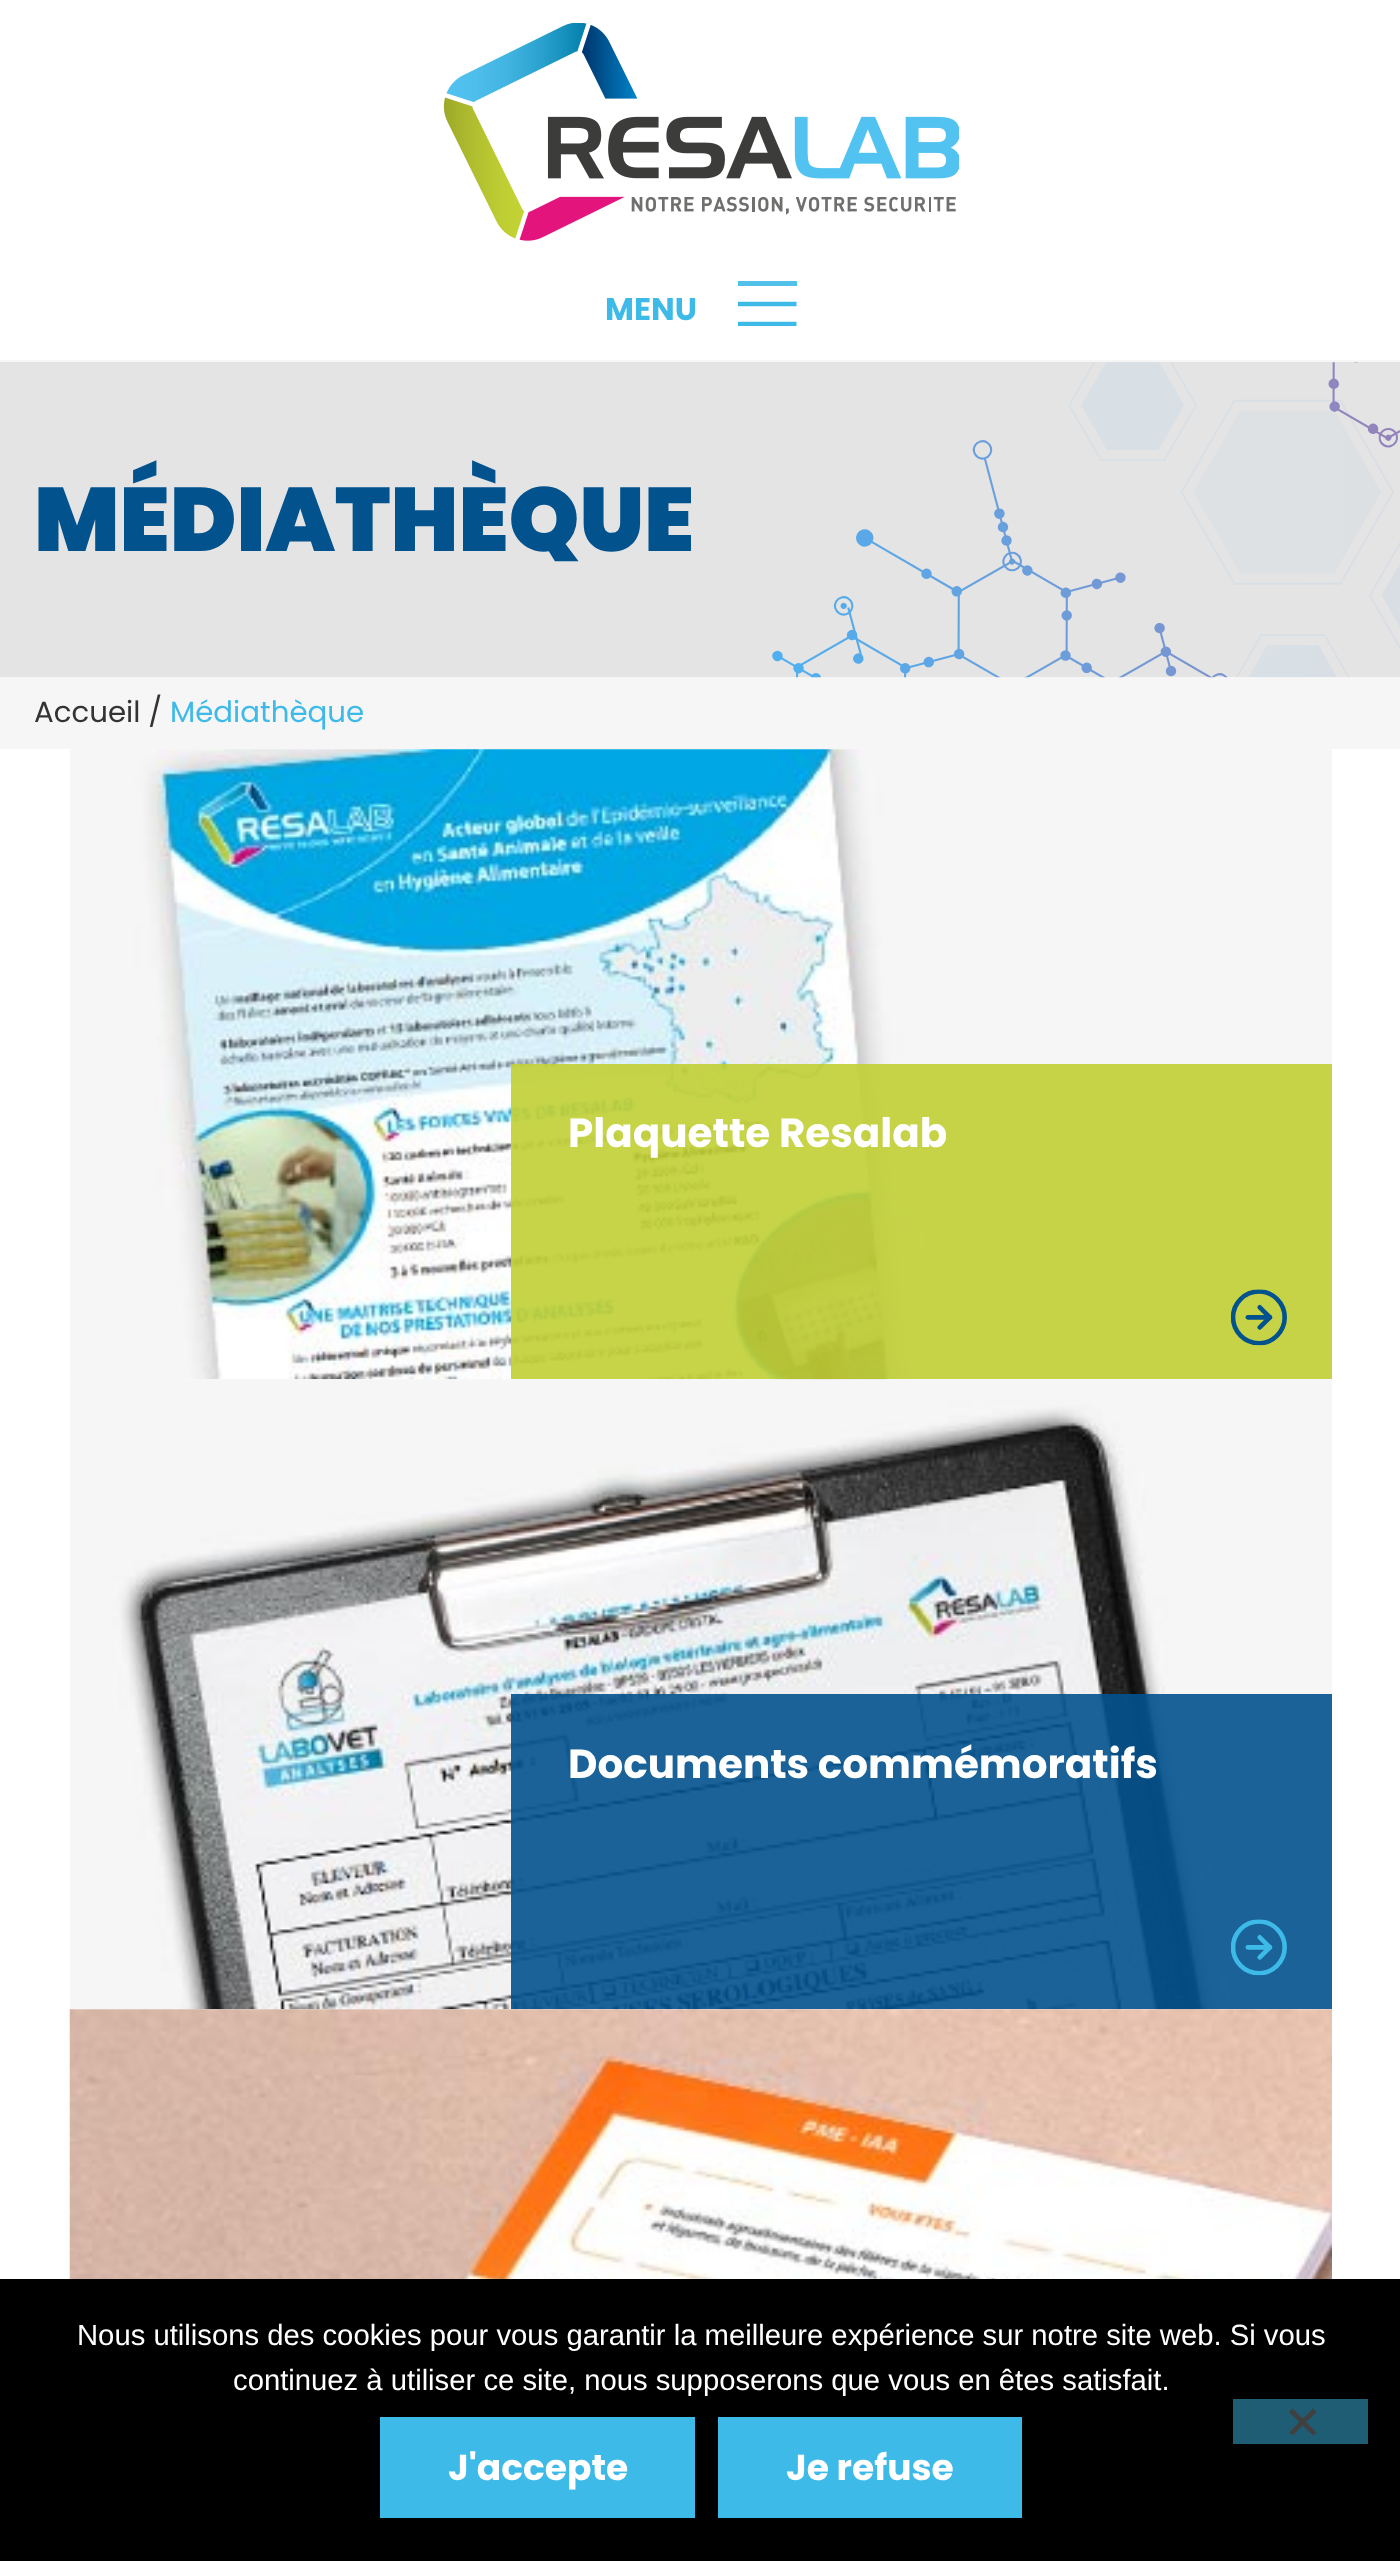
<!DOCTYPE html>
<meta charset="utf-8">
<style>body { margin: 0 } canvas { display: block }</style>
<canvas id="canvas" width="1400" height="2561"></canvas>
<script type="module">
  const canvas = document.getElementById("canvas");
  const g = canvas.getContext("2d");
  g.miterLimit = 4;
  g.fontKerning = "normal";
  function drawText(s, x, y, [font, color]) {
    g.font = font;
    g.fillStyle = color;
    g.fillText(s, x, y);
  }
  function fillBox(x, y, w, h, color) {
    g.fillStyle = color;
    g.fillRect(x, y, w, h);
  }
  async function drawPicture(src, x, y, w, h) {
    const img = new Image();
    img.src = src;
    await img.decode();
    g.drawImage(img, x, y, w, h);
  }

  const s1 = ["bold 31.5px Poppins", "#3EBAE8"];
  const s2 = ["900 90px Poppins", "#02528E"];
  const s3 = ["29.25px Poppins", "#333333"];
  const s4 = ["29.25px Poppins", "#3EBAE8"];
  const s5 = ["bold 40.5px Poppins", "#FFFFFF"];
  const s6 = ["29.25px Liberation Sans", "#FFFFFF"];
  const s7 = ["bold 36px Poppins", "#FFFFFF"];

  fillBox(0, 0, 1400, 2561, "#FFFFFF");
  fillBox(0, 360, 1400, 2, "#F6F6F6");
  await drawPicture("pic1.png", 443, 23, 516, 218);
  drawText("MENU", 605, 320, s1);
  fillBox(738, 281, 59, 5, "#51C1EA");
  g.beginPath();
  g.moveTo(738, 304);
  g.lineTo(796.5, 304);
  g.strokeStyle = "#3EBAE8";
  g.lineWidth = 4.5;
  g.stroke();
  g.save();
  g.beginPath();
  g.rect(738, 281, 59, 45);
  g.clip();
  g.beginPath();
  g.moveTo(738, 324);
  g.lineTo(796.5, 324);
  g.stroke();
  g.restore();
  fillBox(0, 362, 1400, 315, "#E4E4E4");
  drawText("MÉDIATHÈQUE", 34, 551, s2);
  fillBox(0, 677, 1400, 72, "#F6F6F6");
  await drawPicture("pic2.png", 772, 362, 628, 316);
  drawText("Accueil /", 34, 722, s3);
  drawText("Médiathèque", 170, 722, s4);
  await drawPicture("pic3.png", 70, 749, 1262, 631);
  fillBox(511, 1064, 821, 315, "rgba(193, 207, 52, 0.9)");
  drawText("Plaquette Resalab", 568, 1147, s5);
  await drawPicture("pic4.png", 1231, 1289, 56, 57);
  await drawPicture("pic5.png", 70, 1379, 1262, 631);
  fillBox(511, 1694, 821, 315, "rgba(2, 82, 142, 0.9)");
  drawText("Documents commémoratifs", 568, 1778, s5);
  await drawPicture("pic6.png", 1231, 1919, 56, 57);
  await drawPicture("pic7.png", 69, 2009, 1263, 270);
  fillBox(0, 2279, 1400, 282, "#000000");
  drawText("Nous utilisons des cookies pour vous garantir la meilleure expérience sur notre site web. Si vous", 77, 2345, s6);
  drawText("continuez à utiliser ce site, nous supposerons que vous en êtes satisfait.", 233, 2390, s6);
  fillBox(1233, 2399, 135, 45, "#1F5D74");
  g.fillStyle = "#404040";
  g.beginPath();
  g.moveTo(1313, 2408.5);
  g.lineTo(1316.5, 2412);
  g.lineTo(1292.5, 2435.5);
  g.lineTo(1289, 2432.5);
  g.closePath();
  g.fill();
  g.beginPath();
  g.moveTo(1289, 2412);
  g.lineTo(1292.5, 2408.5);
  g.lineTo(1316.5, 2432.5);
  g.lineTo(1313, 2435.5);
  g.closePath();
  g.fill();
  fillBox(380, 2417, 315, 101, "#3EBAE8");
  drawText("J'accepte", 448, 2480, s7);
  fillBox(718, 2417, 304, 101, "#3EBAE8");
  drawText("Je refuse", 786, 2480, s7);
</script>
